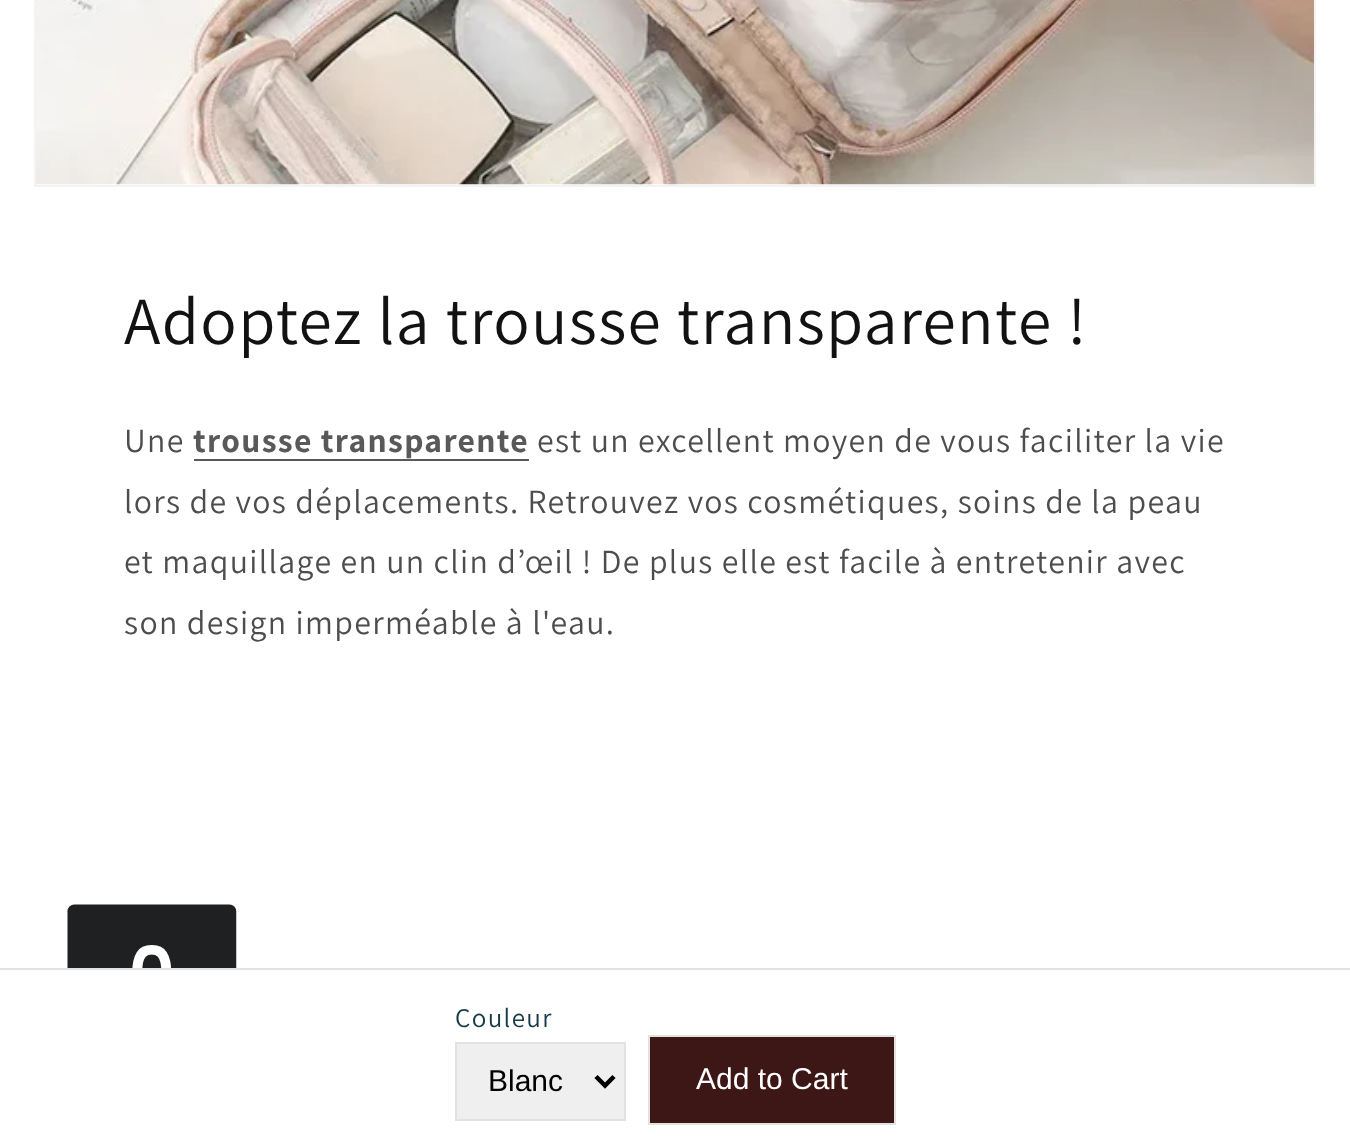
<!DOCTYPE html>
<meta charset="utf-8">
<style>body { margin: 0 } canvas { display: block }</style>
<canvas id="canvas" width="1350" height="1143"></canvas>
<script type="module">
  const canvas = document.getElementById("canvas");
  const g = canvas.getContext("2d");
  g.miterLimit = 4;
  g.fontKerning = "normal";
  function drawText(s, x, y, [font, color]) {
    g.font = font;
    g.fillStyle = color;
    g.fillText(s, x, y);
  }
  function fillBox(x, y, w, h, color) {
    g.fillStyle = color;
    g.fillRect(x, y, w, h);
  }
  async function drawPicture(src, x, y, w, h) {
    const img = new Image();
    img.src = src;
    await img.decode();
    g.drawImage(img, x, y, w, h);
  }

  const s1 = ["67.5px Assistant", "#121212"];
  const s2 = ["33.75px Assistant", "#4D4D4D"];
  const s3 = ["bold 33.75px Assistant", "#595959"];
  const s4 = ["27px Assistant", "#153947"];
  const s5 = ["30px Liberation Sans", "#000000"];
  const s6 = ["30px Liberation Sans", "#FFFFFF"];

  fillBox(0, 0, 1350, 1143, "#FFFFFF");
  g.strokeStyle = "#F3F3F3";
  g.lineWidth = 2;
  g.strokeRect(35, -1, 1280, 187);
  await drawPicture("pic1.png", 36, 0, 1278, 185);
  g.letterSpacing = "1.35px";
  drawText("Adoptez la trousse transparente !", 124, 344, s1);
  drawText("Une", 124, 452, s2);
  drawText("trousse transparente", 193, 452, s3);
  fillBox(194, 459, 335, 2, "#595959");
  drawText("est un excellent moyen de vous faciliter la vie", 537, 452, s2);
  drawText("lors de vos déplacements. Retrouvez vos cosmétiques, soins de la peau", 124, 513, s2);
  drawText("et maquillage en un clin d’œil ! De plus elle est facile à entretenir avec", 124, 573, s2);
  drawText("son design imperméable à l'eau.", 124, 634, s2);
  await drawPicture("pic2.png", 67, 904, 170, 64);
  fillBox(0, 968, 1350, 2, "#E2E2E2");
  drawText("Couleur", 455, 1027, s4);
  g.fillStyle = "#EFEFEF";
  g.beginPath();
  g.rect(456, 1043, 169, 77);
  g.fill();
  g.strokeStyle = "#E2E2E2";
  g.stroke();
  g.beginPath();
  g.moveTo(596, 1076.5);
  g.lineTo(605, 1085.5);
  g.lineTo(614, 1076.5);
  g.strokeStyle = "#000000";
  g.lineWidth = 4.5;
  g.stroke();
  g.letterSpacing = "0px";
  drawText("Blanc", 488, 1091, s5);
  g.fillStyle = "#3D1616";
  g.beginPath();
  g.rect(649, 1036, 246, 88);
  g.fill();
  g.strokeStyle = "#E2E2E2";
  g.lineWidth = 2;
  g.stroke();
  drawText("Add to Cart", 696, 1089, s6);
</script>
